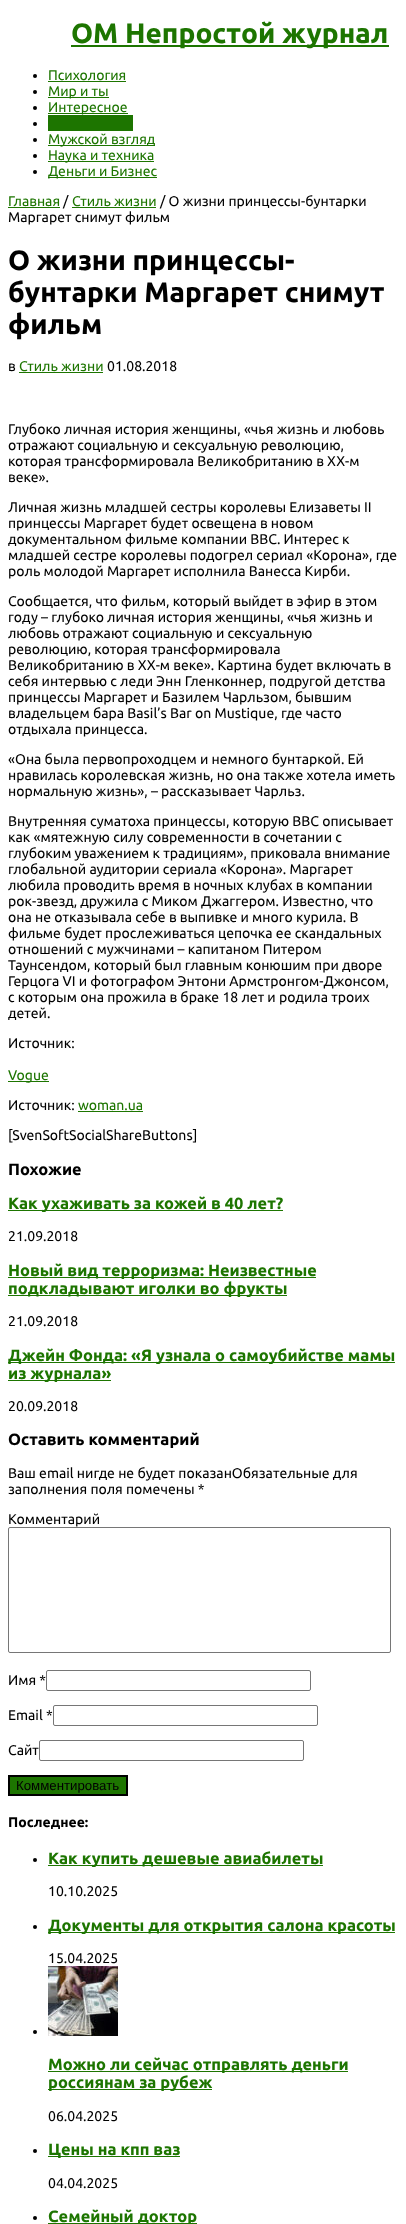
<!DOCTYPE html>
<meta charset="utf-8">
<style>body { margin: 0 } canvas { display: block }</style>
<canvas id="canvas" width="406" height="2224"></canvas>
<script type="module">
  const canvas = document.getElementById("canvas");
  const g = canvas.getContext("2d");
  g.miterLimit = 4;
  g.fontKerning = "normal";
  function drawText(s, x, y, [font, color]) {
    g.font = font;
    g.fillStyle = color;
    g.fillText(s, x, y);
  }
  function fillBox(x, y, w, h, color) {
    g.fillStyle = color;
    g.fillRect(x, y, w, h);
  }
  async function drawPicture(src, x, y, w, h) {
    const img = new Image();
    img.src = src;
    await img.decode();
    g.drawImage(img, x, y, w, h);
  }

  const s1 = ["bold 28px Ubuntu", "#1D7500"];
  const s2 = ["14px Ubuntu", "#1D7500"];
  const s3 = ["14px Ubuntu", "#000000"];
  const s4 = ["bold 28px Ubuntu", "#000000"];
  const s5 = ["bold 16.4px Ubuntu", "#000000"];
  const s6 = ["bold 16.4px Ubuntu", "#1D7500"];
  const s7 = ["13.25px Liberation Sans", "#000000"];
  const s8 = ["bold 14px Ubuntu", "#000000"];

  fillBox(0, 0, 406, 2224, "#FFFFFF");
  fillBox(71, 45, 318, 2, "#1D7500");
  drawText("ОМ Непростой журнал", 71, 43, s1);
  g.fillStyle = "#000000";
  g.beginPath();
  g.arc(35, 76, 2, 0, Math.PI * 2);
  g.fill();
  drawText("Психология", 48, 80, s2);
  fillBox(48, 81, 78, 1, "#1D7500");
  g.fillStyle = "#000000";
  g.beginPath();
  g.arc(35, 92, 2, 0, Math.PI * 2);
  g.fill();
  fillBox(48, 97, 61, 1, "#1D7500");
  drawText("Мир и ты", 48, 96, s2);
  g.fillStyle = "#000000";
  g.beginPath();
  g.arc(35, 108, 2, 0, Math.PI * 2);
  g.fill();
  fillBox(48, 113, 80, 1, "#1D7500");
  drawText("Интересное", 48, 112, s2);
  g.fillStyle = "#000000";
  g.beginPath();
  g.arc(35, 124, 2, 0, Math.PI * 2);
  g.fill();
  fillBox(48, 115, 85, 16, "#1D7500");
  g.fillStyle = "#000000";
  g.beginPath();
  g.arc(35, 140, 2, 0, Math.PI * 2);
  g.fill();
  fillBox(48, 145, 107, 1, "#1D7500");
  drawText("Мужской взгляд", 48, 144, s2);
  g.fillStyle = "#000000";
  g.beginPath();
  g.arc(35, 156, 2, 0, Math.PI * 2);
  g.fill();
  fillBox(48, 161, 106, 1, "#1D7500");
  drawText("Наука и техника", 48, 160, s2);
  g.fillStyle = "#000000";
  g.beginPath();
  g.arc(35, 172, 2, 0, Math.PI * 2);
  g.fill();
  fillBox(48, 177, 109, 1, "#1D7500");
  drawText("Деньги и Бизнес", 48, 176, s2);
  drawText("Главная", 8, 206, s2);
  fillBox(8, 207, 52, 1, "#1D7500");
  drawText("/", 63, 206, s3);
  drawText("Стиль жизни", 72, 206, s2);
  fillBox(72, 207, 84, 1, "#1D7500");
  drawText("/ О жизни принцессы-бунтарки", 160, 206, s3);
  drawText("Маргарет снимут фильм", 8, 222, s3);
  drawText("О жизни принцессы-", 8, 270, s4);
  drawText("бунтарки Маргарет снимут", 8, 302, s4);
  drawText("фильм", 8, 334, s4);
  drawText("в", 8, 371, s3);
  drawText("Стиль жизни", 19, 371, s2);
  fillBox(19, 372, 84, 1, "#1D7500");
  drawText("01.08.2018", 107, 371, s3);
  drawText("Глубоко личная история женщины, «чья жизнь и любовь", 8, 434, s3);
  drawText("отражают социальную и сексуальную революцию,", 8, 450, s3);
  drawText("которая трансформировала Великобританию в ХХ-м", 8, 466, s3);
  drawText("веке».", 8, 482, s3);
  drawText("Личная жизнь младшей сестры королевы Елизаветы II", 8, 512, s3);
  drawText("принцессы Маргарет будет освещена в новом", 8, 528, s3);
  drawText("документальном фильме компании ВВС. Интерес к", 8, 544, s3);
  drawText("младшей сестре королевы подогрел сериал «Корона», где", 8, 560, s3);
  drawText("роль молодой Маргарет исполнила Ванесса Кирби.", 8, 576, s3);
  drawText("Сообщается, что фильм, который выйдет в эфир в этом", 8, 606, s3);
  drawText("году – глубоко личная история женщины, «чья жизнь и", 8, 622, s3);
  drawText("любовь отражают социальную и сексуальную", 8, 638, s3);
  drawText("революцию, которая трансформировала", 8, 654, s3);
  drawText("Великобританию в ХХ-м веке». Картина будет включать в", 8, 670, s3);
  drawText("себя интервью с леди Энн Гленконнер, подругой детства", 8, 686, s3);
  drawText("принцессы Маргарет и Базилем Чарльзом, бывшим", 8, 702, s3);
  drawText("владельцем бара Basil’s Bar on Mustique, где часто", 8, 718, s3);
  drawText("отдыхала принцесса.", 8, 734, s3);
  drawText("«Она была первопроходцем и немного бунтаркой. Ей", 8, 764, s3);
  drawText("нравилась королевская жизнь, но она также хотела иметь", 8, 780, s3);
  drawText("нормальную жизнь», – рассказывает Чарльз.", 8, 796, s3);
  drawText("Внутренняя суматоха принцессы, которую ВВС описывает", 8, 826, s3);
  drawText("как «мятежную силу современности в сочетании с", 8, 842, s3);
  drawText("глубоким уважением к традициям», приковала внимание", 8, 858, s3);
  drawText("глобальной аудитории сериала «Корона». Маргарет", 8, 874, s3);
  drawText("любила проводить время в ночных клубах в компании", 8, 890, s3);
  drawText("рок-звезд, дружила с Миком Джаггером. Известно, что", 8, 906, s3);
  drawText("она не отказывала себе в выпивке и много курила. В", 8, 922, s3);
  drawText("фильме будет прослеживаться цепочка ее скандальных", 8, 938, s3);
  drawText("отношений с мужчинами – капитаном Питером", 8, 954, s3);
  drawText("Таунсендом, который был главным конюшим при дворе", 8, 970, s3);
  drawText("Герцога VI и фотографом Энтони Армстронгом-Джонсом,", 8, 986, s3);
  drawText("с которым она прожила в браке 18 лет и родила троих", 8, 1002, s3);
  drawText("детей.", 8, 1018, s3);
  drawText("Источник:", 8, 1048, s3);
  fillBox(8, 1081, 41, 1, "#1D7500");
  drawText("Vogue", 8, 1080, s2);
  drawText("Источник:", 8, 1110, s3);
  drawText("woman.ua", 78, 1110, s2);
  fillBox(78, 1111, 65, 1, "#1D7500");
  drawText("[SvenSoftSocialShareButtons]", 8, 1140, s3);
  drawText("Похожие", 8, 1175, s5);
  fillBox(8, 1210, 275, 1, "#1D7500");
  drawText("Как ухаживать за кожей в 40 лет?", 8, 1209, s6);
  drawText("21.09.2018", 8, 1241, s3);
  fillBox(8, 1277, 308, 1, "#1D7500");
  drawText("Новый вид терроризма: Неизвестные", 8, 1276, s6);
  fillBox(8, 1295, 279, 1, "#1D7500");
  drawText("подкладывают иголки во фрукты", 8, 1294, s6);
  drawText("21.09.2018", 8, 1326, s3);
  fillBox(8, 1362, 387, 1, "#1D7500");
  drawText("Джейн Фонда: «Я узнала о самоубийстве мамы", 8, 1361, s6);
  fillBox(8, 1380, 103, 1, "#1D7500");
  drawText("из журнала»", 8, 1379, s6);
  drawText("20.09.2018", 8, 1411, s3);
  drawText("Оставить комментарий", 8, 1445, s5);
  drawText("Ваш email нигде не будет показанОбязательные для", 8, 1478, s3);
  drawText("заполнения поля помечены *", 8, 1494, s3);
  drawText("Комментарий", 8, 1524, s3);
  g.beginPath();
  g.roundRect(8.5, 1527.5, 382, 125, 1.5);
  g.strokeStyle = "#767676";
  g.stroke();
  drawText("Имя *", 8, 1685, s3);
  g.beginPath();
  g.roundRect(46.5, 1670.5, 264, 20, 1.5);
  g.stroke();
  drawText("Email *", 8, 1720, s3);
  g.beginPath();
  g.roundRect(53.5, 1705.5, 264, 20, 1.5);
  g.stroke();
  drawText("Сайт", 8, 1755, s3);
  g.beginPath();
  g.roundRect(39.5, 1740.5, 264, 20, 1.5);
  g.stroke();
  g.fillStyle = "#1D7500";
  g.beginPath();
  g.rect(9, 1776, 118, 19);
  g.fill();
  g.strokeStyle = "#000000";
  g.lineWidth = 2;
  g.stroke();
  drawText("Комментировать", 16, 1790, s7);
  drawText("Последнее:", 8, 1827, s8);
  g.beginPath();
  g.arc(35, 1860, 2, 0, Math.PI * 2);
  g.fill();
  fillBox(48, 1865, 275, 1, "#1D7500");
  drawText("Как купить дешевые авиабилеты", 48, 1864, s6);
  drawText("10.10.2025", 48, 1896, s3);
  g.beginPath();
  g.arc(35, 1927, 2, 0, Math.PI * 2);
  g.fill();
  fillBox(48, 1932, 347, 1, "#1D7500");
  drawText("Документы для открытия салона красоты", 48, 1931, s6);
  drawText("15.04.2025", 48, 1963, s3);
  g.beginPath();
  g.arc(35, 2032, 2, 0, Math.PI * 2);
  g.fill();
  await drawPicture("pic1.png", 48, 1966, 70, 70);
  fillBox(48, 2071, 300, 1, "#1D7500");
  drawText("Можно ли сейчас отправлять деньги", 48, 2070, s6);
  fillBox(48, 2089, 164, 1, "#1D7500");
  drawText("россиянам за рубеж", 48, 2088, s6);
  drawText("06.04.2025", 48, 2121, s3);
  g.beginPath();
  g.arc(35, 2151, 2, 0, Math.PI * 2);
  g.fill();
  fillBox(48, 2156, 132, 1, "#1D7500");
  drawText("Цены на кпп ваз", 48, 2155, s6);
  drawText("04.04.2025", 48, 2188, s3);
  g.beginPath();
  g.arc(35, 2218, 2, 0, Math.PI * 2);
  g.fill();
  fillBox(48, 2223, 149, 1, "#1D7500");
  drawText("Семейный доктор", 48, 2222, s6);
</script>
